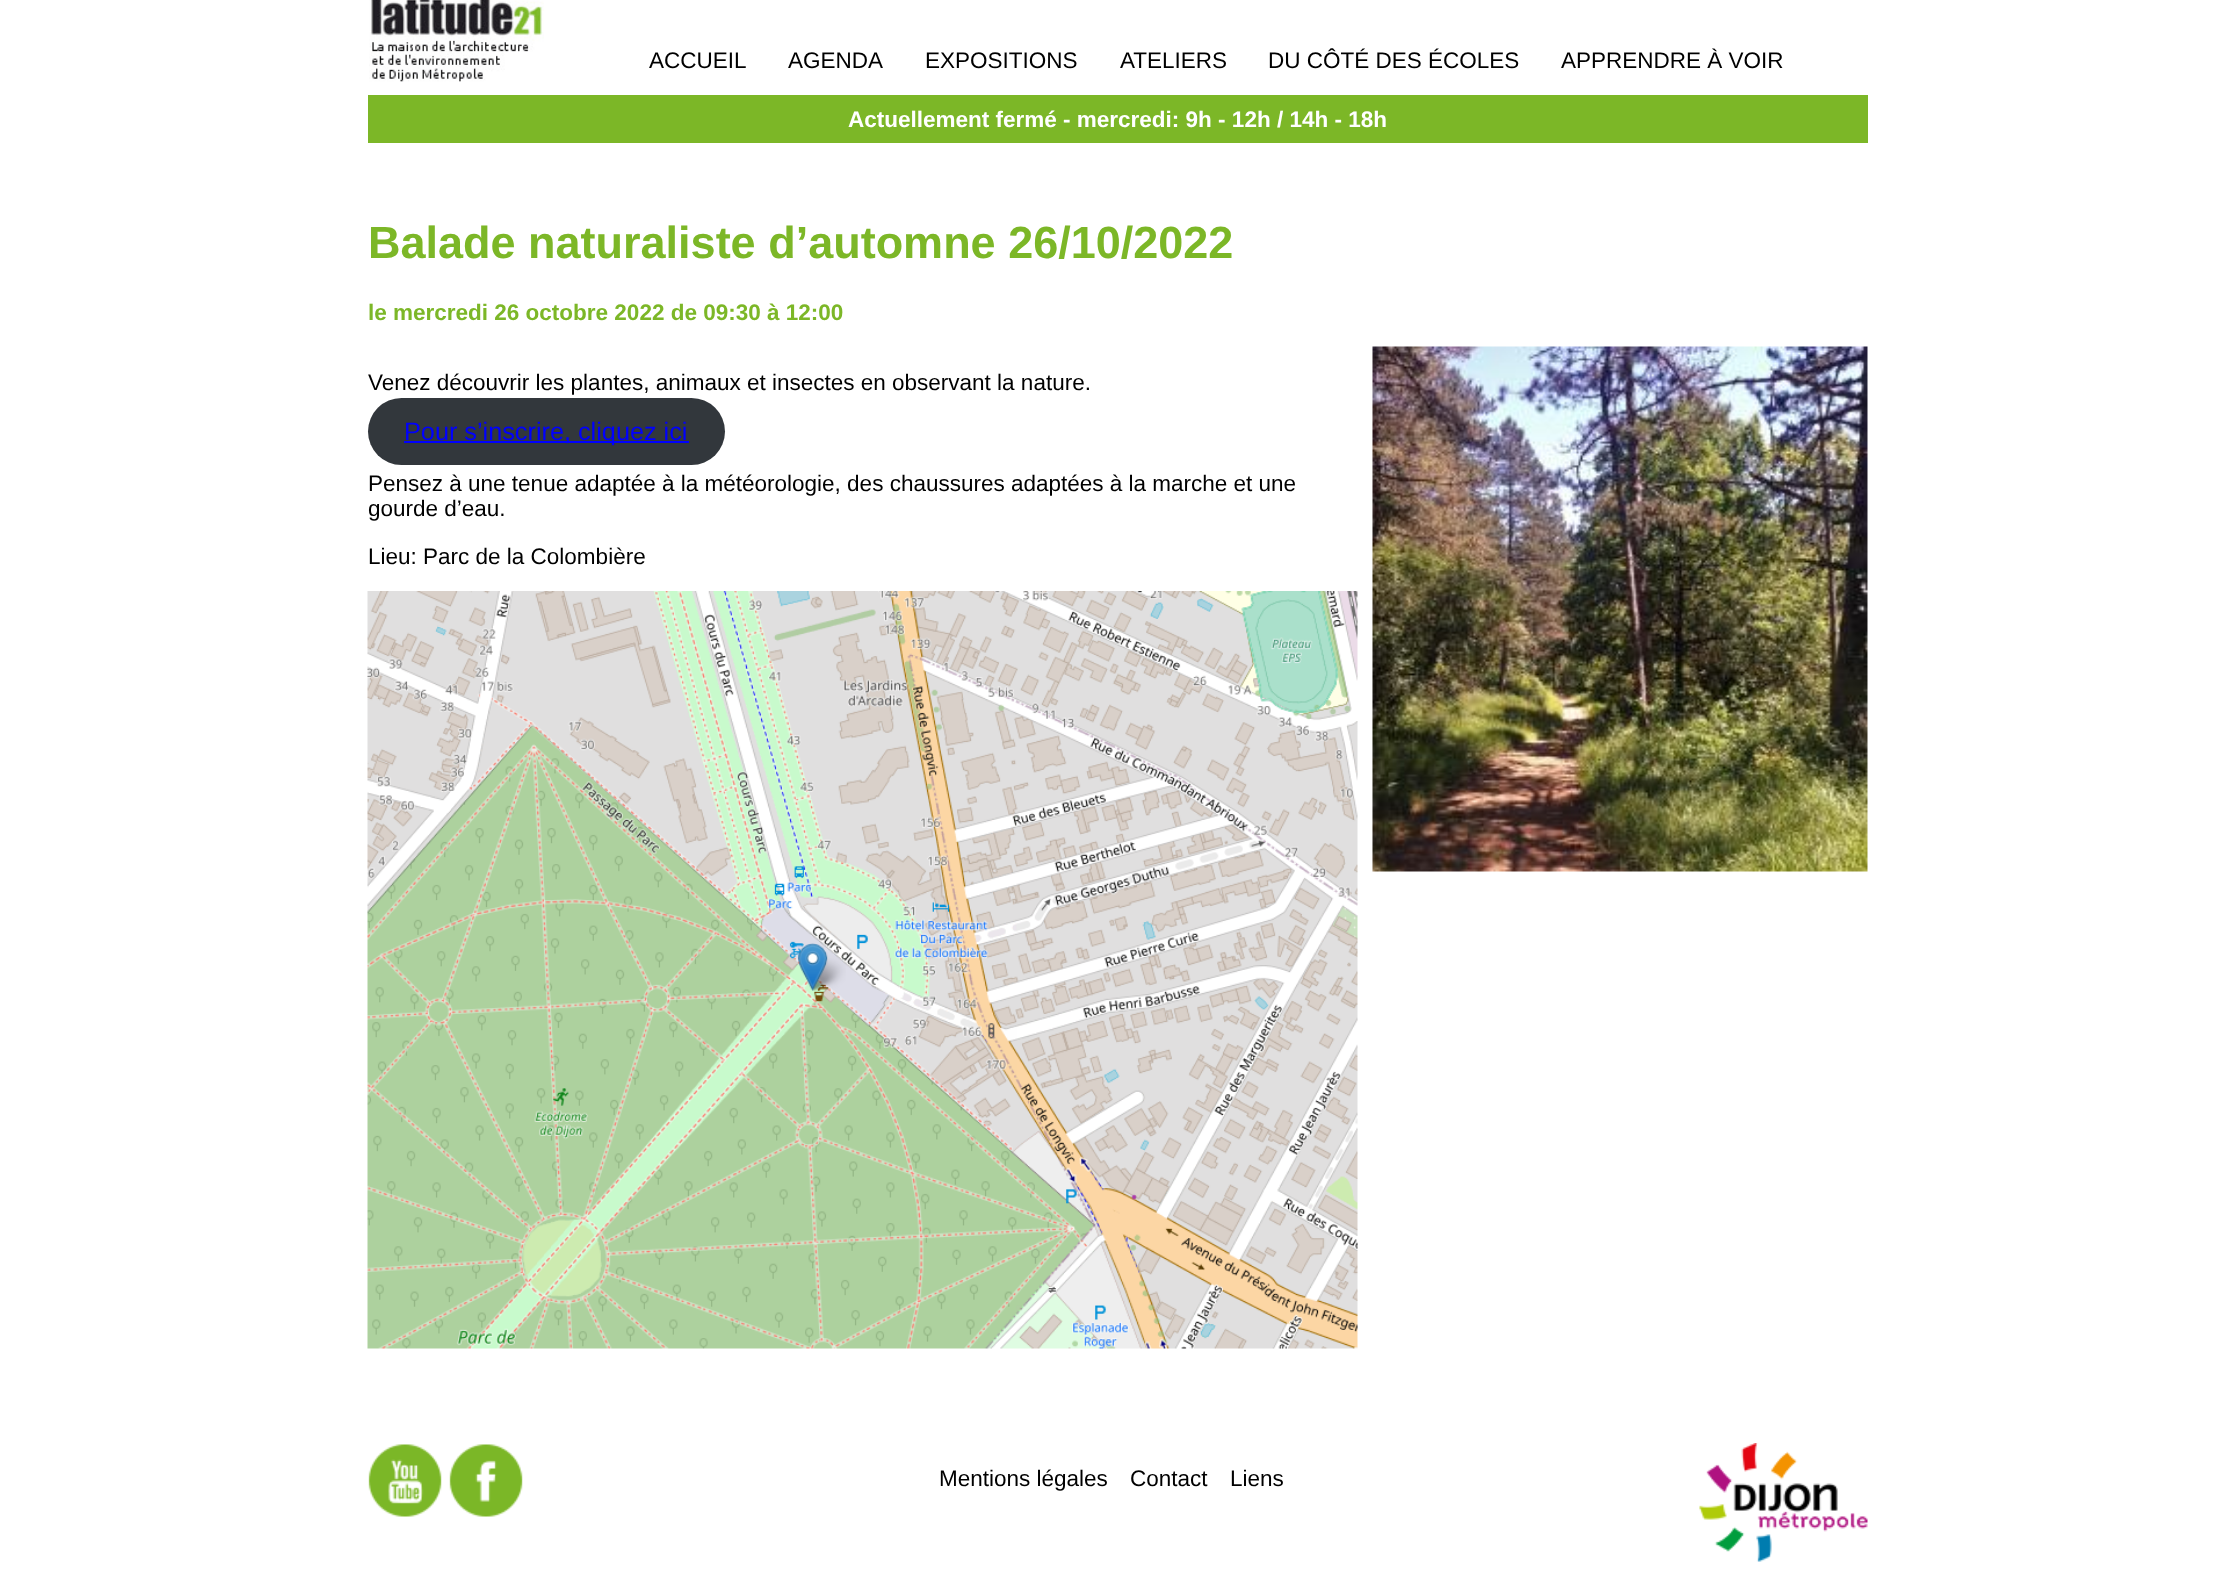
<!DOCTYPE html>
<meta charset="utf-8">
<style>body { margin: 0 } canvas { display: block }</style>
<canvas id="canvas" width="2234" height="1572"></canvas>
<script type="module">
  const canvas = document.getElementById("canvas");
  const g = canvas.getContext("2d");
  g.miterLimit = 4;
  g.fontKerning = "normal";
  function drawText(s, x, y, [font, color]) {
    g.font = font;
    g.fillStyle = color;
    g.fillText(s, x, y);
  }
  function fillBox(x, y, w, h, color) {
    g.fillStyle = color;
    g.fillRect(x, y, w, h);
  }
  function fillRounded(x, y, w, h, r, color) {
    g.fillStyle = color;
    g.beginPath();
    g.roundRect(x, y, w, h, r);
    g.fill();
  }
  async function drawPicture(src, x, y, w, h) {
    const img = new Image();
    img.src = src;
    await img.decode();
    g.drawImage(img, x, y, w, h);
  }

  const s1 = ["22.5px Liberation Sans", "#000000"];
  const s2 = ["bold 22.5px Liberation Sans", "#FFFFFF"];
  const s3 = ["bold 45px Liberation Sans", "#7CB727"];
  const s4 = ["bold 22.5px Liberation Sans", "#7CB727"];
  const s5 = ["25.25px Liberation Sans", "#0000FF"];

  fillBox(0, 0, 2234, 1572, "#FFFFFF");
  await drawPicture("pic1.png", 369, 0, 175, 82);
  drawText("ACCUEIL", 649, 68, s1);
  drawText("AGENDA", 788, 68, s1);
  drawText("EXPOSITIONS", 925, 68, s1);
  drawText("ATELIERS", 1120, 68, s1);
  drawText("DU CÔTÉ DES ÉCOLES", 1268, 68, s1);
  drawText("APPRENDRE À VOIR", 1561, 68, s1);
  fillBox(368, 95, 1500, 48, "#7CB727");
  drawText("Actuellement fermé - mercredi: 9h - 12h / 14h - 18h", 848, 127, s2);
  drawText("Balade naturaliste d’automne 26/10/2022", 368, 258, s3);
  drawText("le mercredi 26 octobre 2022 de 09:30 à 12:00", 368, 320, s4);
  drawText("Venez découvrir les plantes, animaux et insectes en observant la nature.", 368, 390, s1);
  fillRounded(368, 398, 357, 67, 33.5, "#32373C");
  fillBox(404, 441, 285, 2, "#0000FF");
  drawText("Pour s’inscrire, cliquez ici", 404, 440, s5);
  drawText("Pensez à une tenue adaptée à la météorologie, des chaussures adaptées à la marche et une", 368, 491, s1);
  drawText("gourde d’eau.", 368, 516, s1);
  drawText("Lieu: Parc de la Colombière", 368, 564, s1);
  await drawPicture("pic2.png", 367, 591, 991, 758);
  await drawPicture("pic3.png", 1372, 346, 496, 526);
  await drawPicture("pic4.png", 368, 1444, 74, 73);
  await drawPicture("pic5.png", 449, 1444, 74, 73);
  drawText("Mentions légales", 939, 1486, s1);
  drawText("Contact", 1130, 1486, s1);
  drawText("Liens", 1230, 1486, s1);
  await drawPicture("pic6.png", 1699, 1443, 169, 119);
</script>
